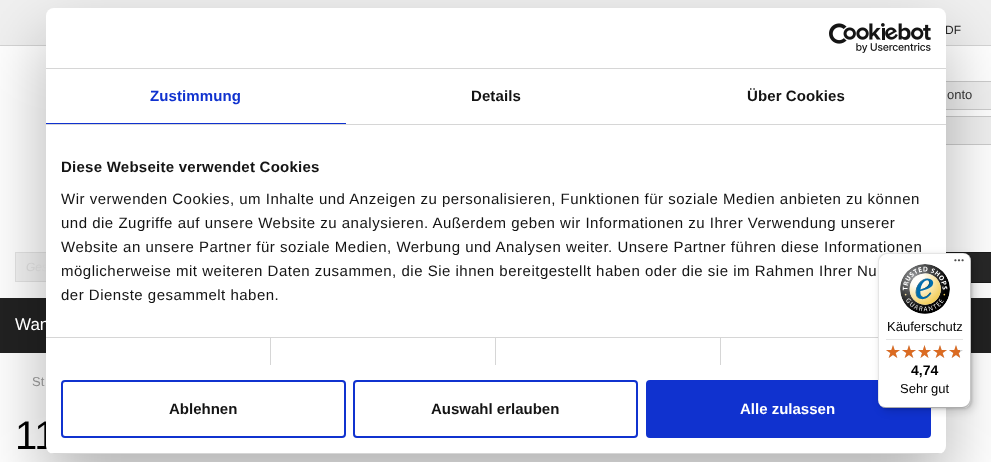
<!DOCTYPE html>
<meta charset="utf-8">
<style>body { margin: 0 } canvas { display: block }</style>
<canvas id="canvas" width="991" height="462"></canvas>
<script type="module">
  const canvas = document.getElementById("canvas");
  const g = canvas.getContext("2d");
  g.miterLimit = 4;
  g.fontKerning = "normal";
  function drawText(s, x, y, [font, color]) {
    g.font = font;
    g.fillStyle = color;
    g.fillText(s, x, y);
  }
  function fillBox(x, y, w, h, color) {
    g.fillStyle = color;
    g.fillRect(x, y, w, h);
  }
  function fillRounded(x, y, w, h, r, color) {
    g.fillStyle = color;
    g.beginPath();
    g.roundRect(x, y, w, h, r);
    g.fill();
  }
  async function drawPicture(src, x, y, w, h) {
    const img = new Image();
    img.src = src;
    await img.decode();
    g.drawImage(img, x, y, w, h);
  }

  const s1 = ["12px Liberation Sans", "#282828"];
  const s2 = ["italic 12px Liberation Sans", "#CCCCCC"];
  const s3 = ["40px Liberation Sans", "#000000"];
  const s4 = ["bold 15px Liberation Sans", "#1032CF"];
  const s5 = ["bold 15px Liberation Sans", "#141414"];
  const s6 = ["15px Liberation Sans", "#141414"];
  const s7 = ["bold 15px Liberation Sans", "#FFFFFF"];
  const s8 = ["13px Liberation Sans", "#333333"];
  const s9 = ["17px Liberation Sans", "#FFFFFF"];
  const s10 = ["13px Liberation Sans", "#000000"];
  const s11 = ["bold 14px Liberation Sans", "#000000"];
  const s12 = ["13px Liberation Sans", "#8A8A8A"];

  fillBox(0, 0, 991, 462, "#FFFFFF");
  fillBox(0, 0, 991, 45, "#F0F0F0");
  fillBox(0, 45, 991, 1, "#D4D4D4");
  drawText("DF", 945, 34, s1);
  fillBox(946, 82, 45, 27, "#F0F0F0");
  g.strokeStyle = "#CCCCCC";
  g.strokeRect(821.5, 81.5, 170, 28);
  fillBox(946, 117, 45, 27, "#F0F0F0");
  g.strokeRect(821.5, 116.5, 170, 28);
  fillBox(16, 253, 30, 28, "#F3F3F3");
  g.strokeStyle = "#E4E4E4";
  g.strokeRect(15.5, 252.5, 918, 29);
  fillBox(963, 253, 28, 29, "#282828");
  g.strokeStyle = "#1B1B1B";
  g.strokeRect(933.5, 252.5, 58, 30);
  fillBox(0, 298, 991, 55, "#222222");
  g.fillStyle = "rgba(0, 0, 0, 0.3)";
  g.filter = "blur(34px)";
  g.beginPath();
  g.roundRect(46, 40, 900, 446, 8);
  g.fill();
  g.filter = "none";
  drawText("Ges", 26, 271, s2);
  drawText("11", 15, 449, s3);
  fillRounded(46, 8, 900, 446, 8, "#FFFFFF");
  fillBox(46, 68, 900, 1, "#D6D6D6");
  await drawPicture("pic1.png", 829, 23, 102, 30);
  fillBox(46, 124, 900, 1, "#D6D6D6");
  fillBox(46, 123, 300, 1, "#1032CF");
  g.letterSpacing = "0.1px";
  drawText("Zustimmung", 150, 101, s4);
  drawText("Details", 471, 101, s5);
  drawText("Über Cookies", 747, 101, s5);
  fillBox(46, 337, 832, 1, "#D6D6D6");
  g.letterSpacing = "0.25px";
  drawText("Diese Webseite verwendet Cookies", 61, 172, s5);
  g.letterSpacing = "0.5px";
  drawText("Wir verwenden Cookies, um Inhalte und Anzeigen zu personalisieren, Funktionen für soziale Medien anbieten zu können", 61, 204, s6);
  drawText("und die Zugriffe auf unsere Website zu analysieren. Außerdem geben wir Informationen zu Ihrer Verwendung unserer", 61, 228, s6);
  drawText("Website an unsere Partner für soziale Medien, Werbung und Analysen weiter. Unsere Partner führen diese Informationen", 61, 252, s6);
  drawText("möglicherweise mit weiteren Daten zusammen, die Sie ihnen bereitgestellt haben oder die sie im Rahmen Ihrer Nu", 61, 276, s6);
  drawText("der Dienste gesammelt haben.", 61, 300, s6);
  fillBox(270, 338, 1, 27, "#D6D6D6");
  fillBox(495, 338, 1, 27, "#D6D6D6");
  fillBox(720, 338, 1, 27, "#D6D6D6");
  g.save();
  g.beginPath();
  g.roundRect(46, 8, 900, 446, 8);
  g.clip();
  fillBox(46, 453, 900, 1, "#D6D6D6");
  g.restore();
  g.beginPath();
  g.roundRect(62, 381, 283, 56, 3);
  g.strokeStyle = "#1032CF";
  g.lineWidth = 2;
  g.stroke();
  g.letterSpacing = "0px";
  drawText("Ablehnen", 169, 414, s5);
  g.beginPath();
  g.roundRect(354, 381, 283, 56, 3);
  g.stroke();
  drawText("Auswahl erlauben", 431, 414, s5);
  g.fillStyle = "#1032CF";
  g.beginPath();
  g.roundRect(647, 381, 283, 56, 3);
  g.fill();
  g.stroke();
  drawText("Alle zulassen", 740, 414, s7);
  drawText("onto", 947, 99, s8);
  drawText("Wan", 15, 330, s9);
  g.fillStyle = "rgba(0, 0, 0, 0.15)";
  g.filter = "blur(4px)";
  g.beginPath();
  g.roundRect(881, 256, 93, 155, 8);
  g.fill();
  g.filter = "none";
  g.filter = "blur(1px)";
  g.beginPath();
  g.roundRect(879, 254, 93, 155, 8);
  g.fill();
  g.filter = "none";
  fillRounded(878, 253, 93, 155, 8, "#FFFFFF");
  g.fillStyle = "rgba(0, 0, 0, 0.1)";
  g.beginPath();
  g.moveTo(887, 254);
  g.lineTo(964, 254);
  g.bezierCurveTo(966, 254, 968, 255, 970, 257);
  g.bezierCurveTo(968, 255, 966, 253, 963, 253);
  g.lineTo(886, 253);
  g.bezierCurveTo(882, 253, 878, 257, 878, 261);
  g.lineTo(878, 400);
  g.bezierCurveTo(878, 403, 880, 405, 882, 407);
  g.bezierCurveTo(880, 405, 879, 403, 879, 401);
  g.lineTo(879, 262);
  g.bezierCurveTo(879, 258, 883, 254, 887, 254);
  g.closePath();
  g.fill();
  g.fillStyle = "rgba(0, 0, 0, 0.2)";
  g.beginPath();
  g.moveTo(879, 404);
  g.bezierCurveTo(881, 406, 883, 408, 886, 408);
  g.lineTo(963, 408);
  g.bezierCurveTo(967, 408, 971, 404, 971, 400);
  g.lineTo(971, 261);
  g.bezierCurveTo(971, 258, 969, 256, 967, 254);
  g.bezierCurveTo(969, 256, 970, 258, 970, 260);
  g.lineTo(970, 399);
  g.bezierCurveTo(970, 403, 966, 407, 962, 407);
  g.lineTo(885, 407);
  g.bezierCurveTo(883, 407, 881, 406, 879, 404);
  g.closePath();
  g.fill();
  g.fillStyle = "rgba(50, 50, 50, 0.2)";
  g.beginPath();
  g.moveTo(880, 405);
  g.bezierCurveTo(881, 407, 884, 408, 886, 408);
  g.lineTo(963, 408);
  g.bezierCurveTo(967, 408, 971, 404, 971, 400);
  g.lineTo(971, 261);
  g.bezierCurveTo(971, 259, 970, 256, 968, 255);
  g.bezierCurveTo(969, 256, 970, 258, 970, 260);
  g.lineTo(970, 399);
  g.bezierCurveTo(970, 404, 967, 407, 962, 407);
  g.lineTo(885, 407);
  g.bezierCurveTo(883, 407, 881, 406, 880, 405);
  g.closePath();
  g.fill();
  g.fillStyle = "rgba(255, 255, 255, 0.3)";
  g.beginPath();
  g.moveTo(962, 408);
  g.lineTo(963, 408);
  g.bezierCurveTo(967, 408, 971, 404, 971, 400);
  g.lineTo(971, 261);
  g.bezierCurveTo(971, 259, 970, 256, 968, 255);
  g.bezierCurveTo(969, 256, 970, 258, 970, 260);
  g.lineTo(970, 400);
  g.bezierCurveTo(970, 404, 967, 408, 962, 408);
  g.closePath();
  g.fill();
  await drawPicture("pic2.png", 954, 259, 10, 3);
  await drawPicture("pic3.png", 900, 264, 50, 50);
  drawText("Käuferschutz", 887, 331, s10);
  fillBox(886, 339, 77, 1, "#E5E5E5");
  await drawPicture("pic4.png", 886, 345, 14, 13);
  await drawPicture("pic4.png", 902, 345, 14, 13);
  await drawPicture("pic5.png", 918, 345, 13, 13);
  await drawPicture("pic4.png", 933, 345, 14, 13);
  await drawPicture("pic4.png", 949, 345, 14, 13);
  await drawPicture("pic6.png", 886, 345, 14, 13);
  await drawPicture("pic6.png", 902, 345, 14, 13);
  await drawPicture("pic7.png", 918, 345, 13, 13);
  await drawPicture("pic6.png", 933, 345, 14, 13);
  await drawPicture("pic8.png", 949, 345, 11, 13);
  drawText("4,74", 911, 375, s11);
  drawText("Sehr gut", 900, 393, s10);
  drawText("St", 32, 386, s12);
</script>
